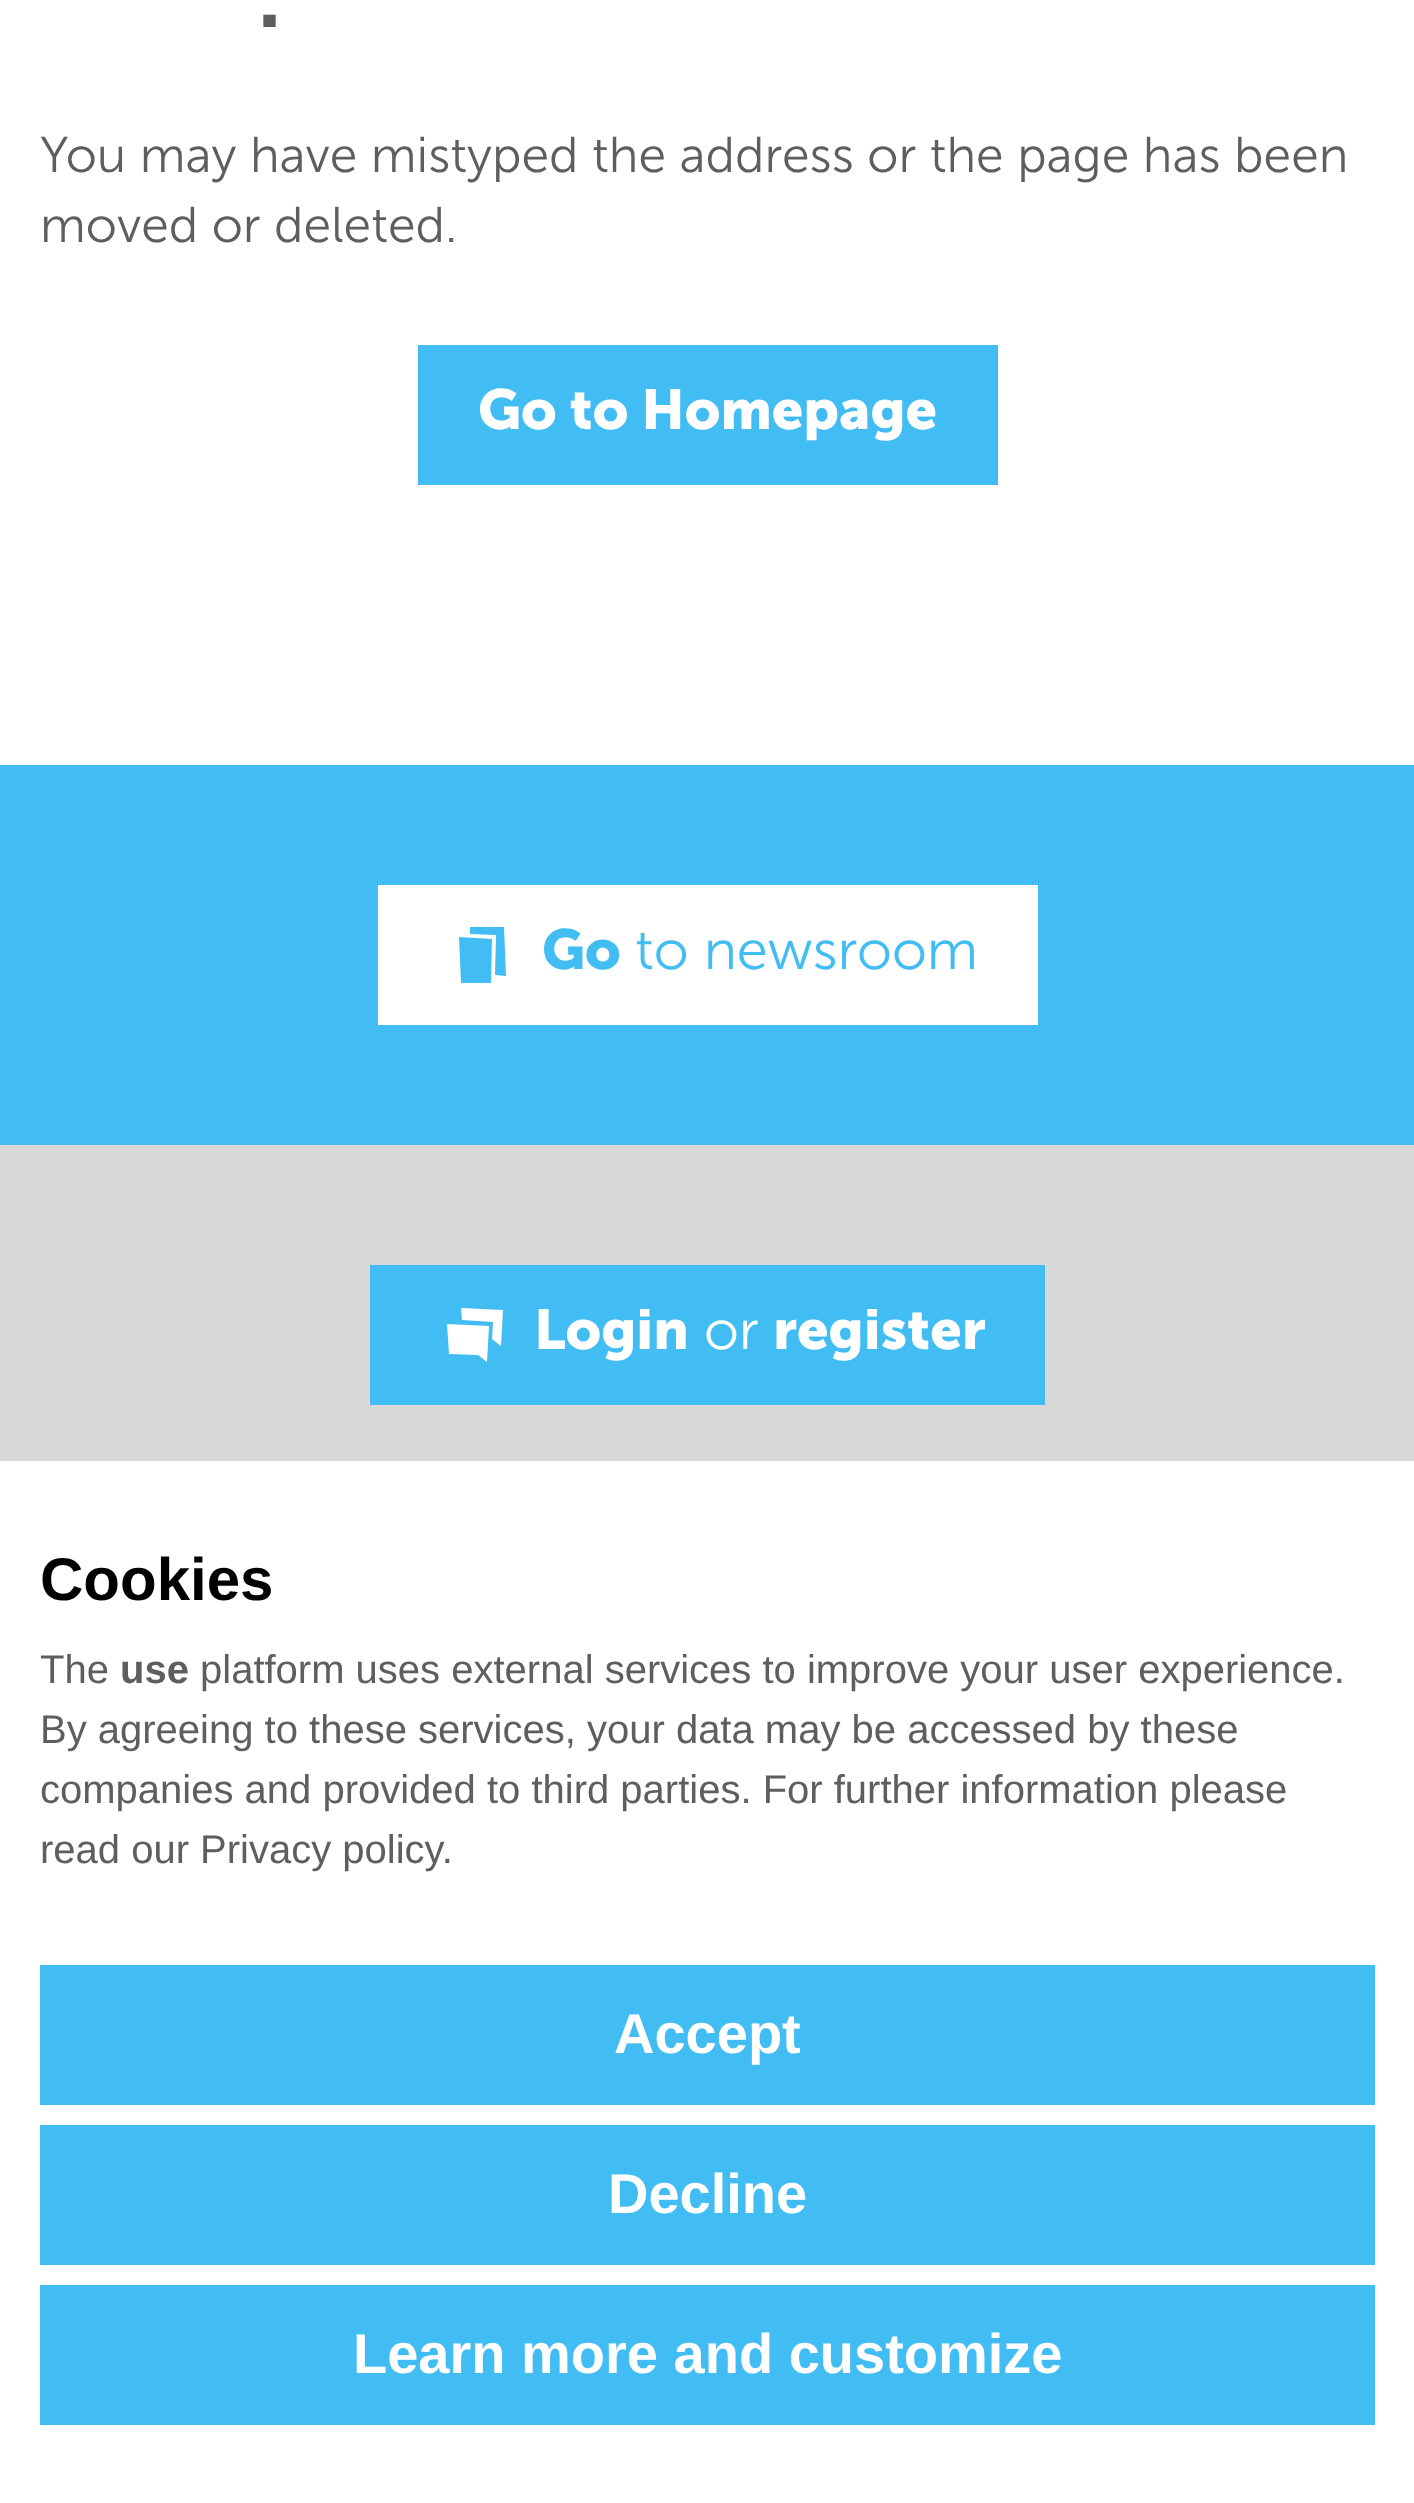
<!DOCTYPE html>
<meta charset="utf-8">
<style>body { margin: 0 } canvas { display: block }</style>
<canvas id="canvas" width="1414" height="2503"></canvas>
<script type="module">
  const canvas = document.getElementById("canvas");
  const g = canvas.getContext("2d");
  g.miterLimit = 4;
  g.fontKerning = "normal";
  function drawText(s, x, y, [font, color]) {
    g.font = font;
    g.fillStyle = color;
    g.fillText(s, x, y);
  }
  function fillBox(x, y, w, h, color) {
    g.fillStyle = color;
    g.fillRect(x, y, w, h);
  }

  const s1 = ["75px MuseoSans", "#5E5E5E"];
  const s2 = ["50px 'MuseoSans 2'", "#5E5E5E"];
  const s3 = ["56px MuseoSans", "#FFFFFF"];
  const s4 = ["56px MuseoSans", "#42BDF4"];
  const s5 = ["56px 'MuseoSans 2'", "#42BDF4"];
  const s6 = ["56px 'MuseoSans 2'", "#FFFFFF"];
  const s7 = ["bold 60px Liberation Sans", "#000000"];
  const s8 = ["40px Liberation Sans", "#5E5E5E"];
  const s9 = ["bold 40px Liberation Sans", "#5E5E5E"];
  const s10 = ["bold 56px Liberation Sans", "#FFFFFF"];

  fillBox(0, 0, 1414, 2503, "#FFFFFF");
  drawText(".", 259, 27, s1);
  drawText("You may have mistyped the address or the page has been", 40, 172, s2);
  drawText("moved or deleted.", 40, 242, s2);
  fillBox(418, 345, 580, 140, "#42BDF4");
  drawText("Go to Homepage", 478, 429, s3);
  fillBox(0, 765, 1414, 380, "#42BDF4");
  fillBox(378, 885, 660, 140, "#FFFFFF");
  g.fillStyle = "#42BDF4";
  g.beginPath();
  g.moveTo(492, 939);
  g.lineTo(491, 983);
  g.lineTo(461, 983);
  g.lineTo(459, 937);
  g.closePath();
  g.fill();
  g.beginPath();
  g.moveTo(496, 935);
  g.lineTo(470, 934);
  g.lineTo(470, 927);
  g.lineTo(504, 927);
  g.lineTo(506, 976);
  g.lineTo(495, 975);
  g.closePath();
  g.fill();
  drawText("Go", 542, 969, s4);
  drawText("to newsroom", 635, 969, s5);
  fillBox(0, 1145, 1414, 316, "#D8D8D8");
  fillBox(370, 1265, 675, 140, "#42BDF4");
  g.fillStyle = "#FFFFFF";
  g.beginPath();
  g.moveTo(489, 1326);
  g.lineTo(447, 1324);
  g.lineTo(449, 1354);
  g.lineTo(478, 1355);
  g.lineTo(487, 1362);
  g.closePath();
  g.fill();
  g.beginPath();
  g.moveTo(461, 1308);
  g.lineTo(462, 1320);
  g.lineTo(493, 1322);
  g.lineTo(492, 1339);
  g.lineTo(501, 1346);
  g.lineTo(503, 1310);
  g.closePath();
  g.fill();
  drawText("Login", 534, 1349, s3);
  drawText("or", 704, 1349, s6);
  drawText("register", 773, 1349, s3);
  drawText("Cookies", 40, 1600, s7);
  drawText("The", 40, 1683, s8);
  drawText("use", 120, 1683, s9);
  drawText("platform uses external services to improve your user experience.", 200, 1683, s8);
  drawText("By agreeing to these services, your data may be accessed by these", 40, 1743, s8);
  drawText("companies and provided to third parties. For further information please", 40, 1803, s8);
  drawText("read our Privacy policy.", 40, 1863, s8);
  fillBox(40, 1965, 1335, 140, "#42BDF4");
  drawText("Accept", 614, 2053, s10);
  fillBox(40, 2125, 1335, 140, "#42BDF4");
  drawText("Decline", 608, 2213, s10);
  fillBox(40, 2285, 1335, 140, "#42BDF4");
  drawText("Learn more and customize", 353, 2373, s10);
</script>
